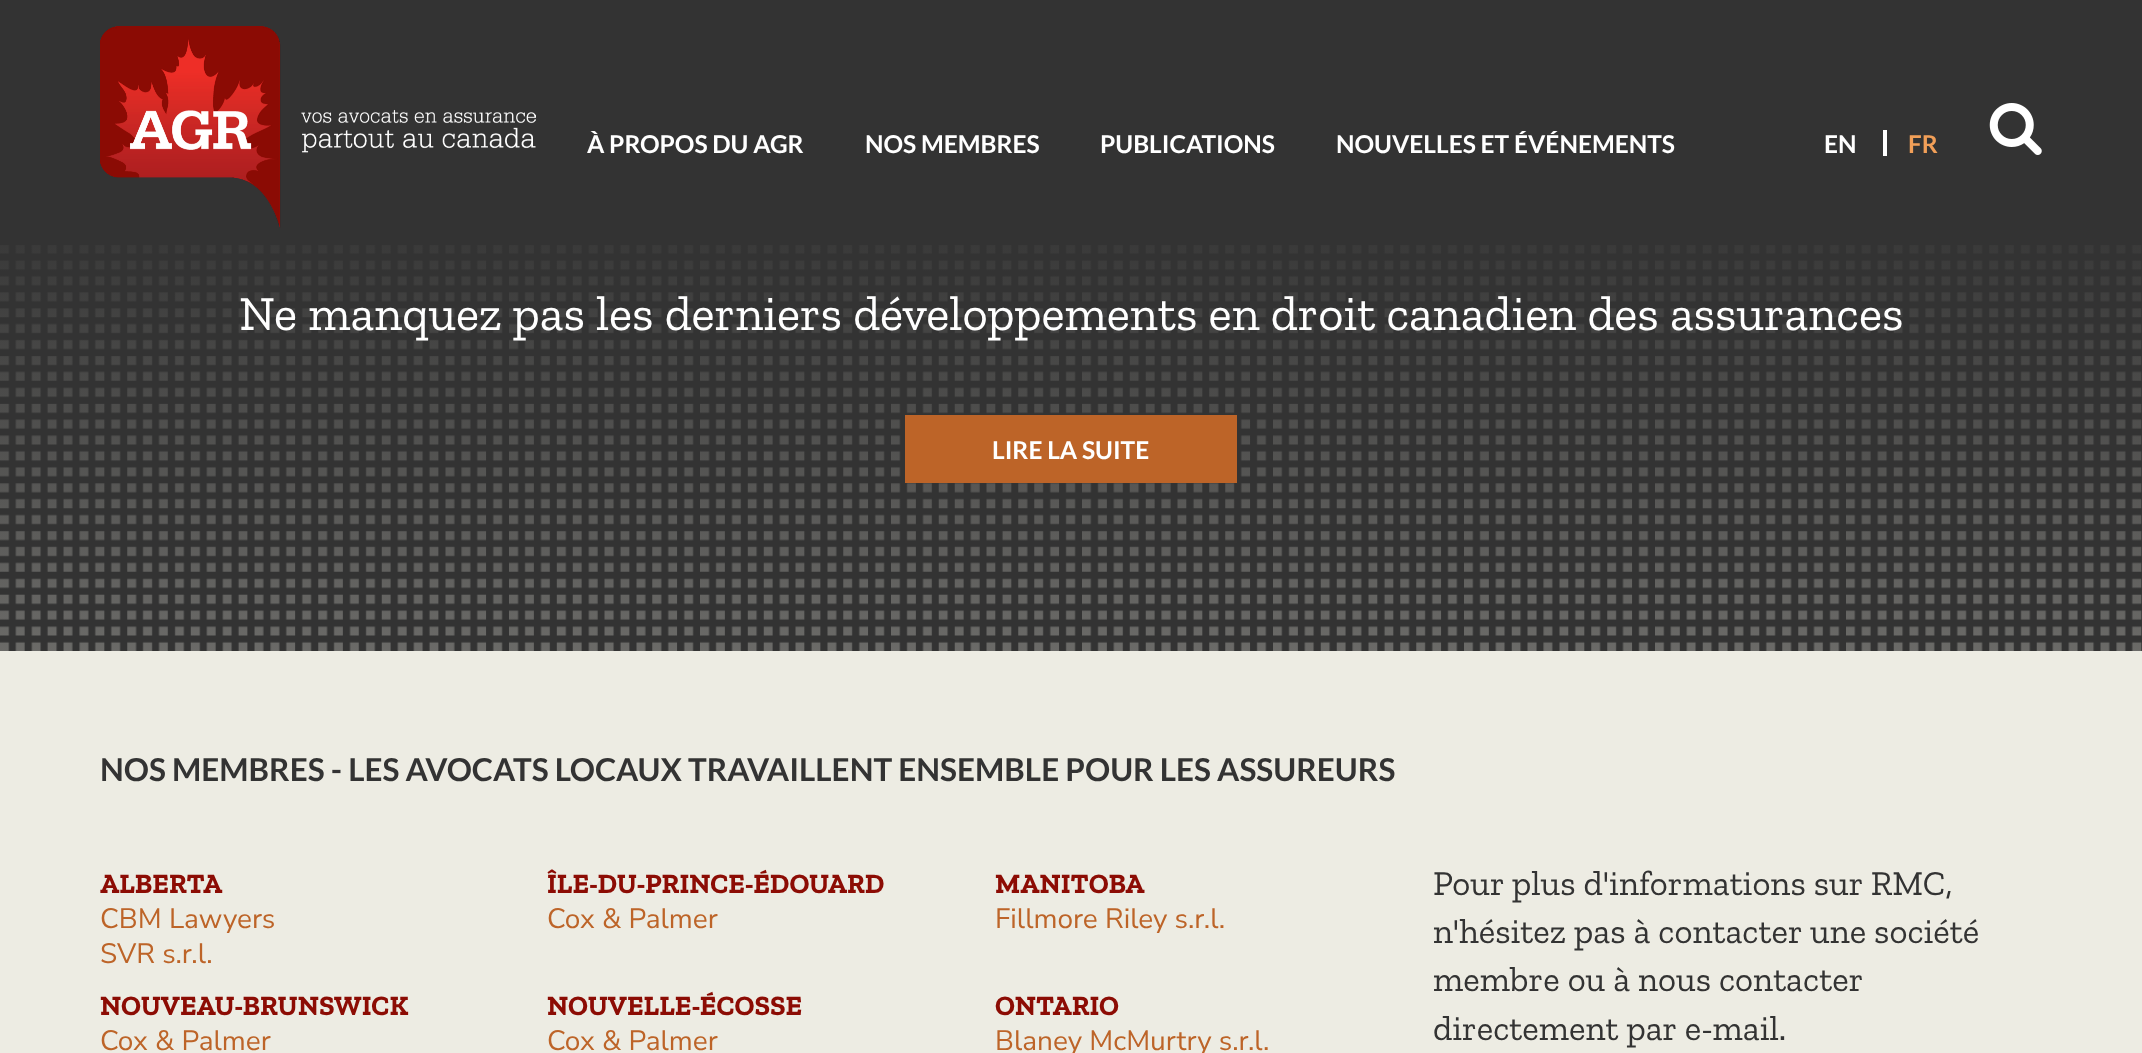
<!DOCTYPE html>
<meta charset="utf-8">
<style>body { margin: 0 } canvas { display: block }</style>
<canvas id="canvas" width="2142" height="1053"></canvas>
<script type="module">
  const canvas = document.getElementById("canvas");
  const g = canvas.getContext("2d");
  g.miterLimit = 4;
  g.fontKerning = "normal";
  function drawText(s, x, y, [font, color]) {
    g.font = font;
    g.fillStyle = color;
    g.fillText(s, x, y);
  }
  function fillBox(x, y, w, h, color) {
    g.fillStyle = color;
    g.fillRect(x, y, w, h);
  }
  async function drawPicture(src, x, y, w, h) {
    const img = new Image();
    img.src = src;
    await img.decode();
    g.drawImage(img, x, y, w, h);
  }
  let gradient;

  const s1 = ["bold 24.5px Lato", "#FFFFFF"];
  const s2 = ["bold 24.5px Lato", "#F19F58"];
  const s3 = ["49px Zilla Slab", "#FFFFFF"];
  const s4 = ["bold 31.5px Lato", "#333333"];
  const s5 = ["bold 28px Zilla Slab", "#8C0C04"];
  const s6 = ["28px Nunito Sans", "#BD6428"];
  const s7 = ["35px Zilla Slab", "#333333"];

  fillBox(0, 0, 2142, 1053, "#EDECE3");
  fillBox(0, 0, 2142, 651, "#333333");
  await drawPicture("pic1.png", 100, 26, 436, 202);
  drawText("À PROPOS DU AGR", 587, 153, s1);
  drawText("NOS MEMBRES", 865, 153, s1);
  drawText("PUBLICATIONS", 1100, 153, s1);
  drawText("NOUVELLES ET ÉVÉNEMENTS", 1336, 153, s1);
  drawText("EN", 1824, 153, s1);
  fillBox(1883, 130, 4, 26, "#FFFFFF");
  drawText("FR", 1908, 153, s2);
  await drawPicture("pic2.png", 1989, 103, 53, 52);
  await drawPicture("pic3.png", 0, 245, 2142, 406);
  gradient = g.createLinearGradient(1071, 187, 1071, 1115);
  gradient.addColorStop(0, "#333333");
  gradient.addColorStop(1, "rgba(51, 51, 51, 0)");
  g.fillStyle = gradient;
  g.fillRect(0, 245, 2142, 406);
  drawText("Ne manquez pas les derniers développements en droit canadien des assurances", 239, 330, s3);
  fillBox(905, 415, 332, 68, "#BD6428");
  drawText("LIRE LA SUITE", 992, 459, s1);
  drawText("NOS MEMBRES - LES AVOCATS LOCAUX TRAVAILLENT ENSEMBLE POUR LES ASSUREURS", 100, 781, s4);
  drawText("ALBERTA", 100, 893, s5);
  drawText("CBM Lawyers", 100, 928, s6);
  drawText("SVR s.r.l.", 100, 963, s6);
  drawText("ÎLE-DU-PRINCE-ÉDOUARD", 547, 893, s5);
  drawText("Cox & Palmer", 547, 928, s6);
  drawText("MANITOBA", 995, 893, s5);
  drawText("Fillmore Riley s.r.l.", 995, 928, s6);
  drawText("NOUVEAU-BRUNSWICK", 100, 1015, s5);
  drawText("Cox & Palmer", 100, 1050, s6);
  drawText("NOUVELLE-ÉCOSSE", 547, 1015, s5);
  drawText("Cox & Palmer", 547, 1050, s6);
  drawText("ONTARIO", 995, 1015, s5);
  drawText("Blaney McMurtry s.r.l.", 995, 1050, s6);
  drawText("Pour plus d'informations sur RMC,", 1433, 895, s7);
  drawText("n'hésitez pas à contacter une société", 1433, 943, s7);
  drawText("membre ou à nous contacter", 1433, 991, s7);
  drawText("directement par e-mail.", 1433, 1040, s7);
</script>
